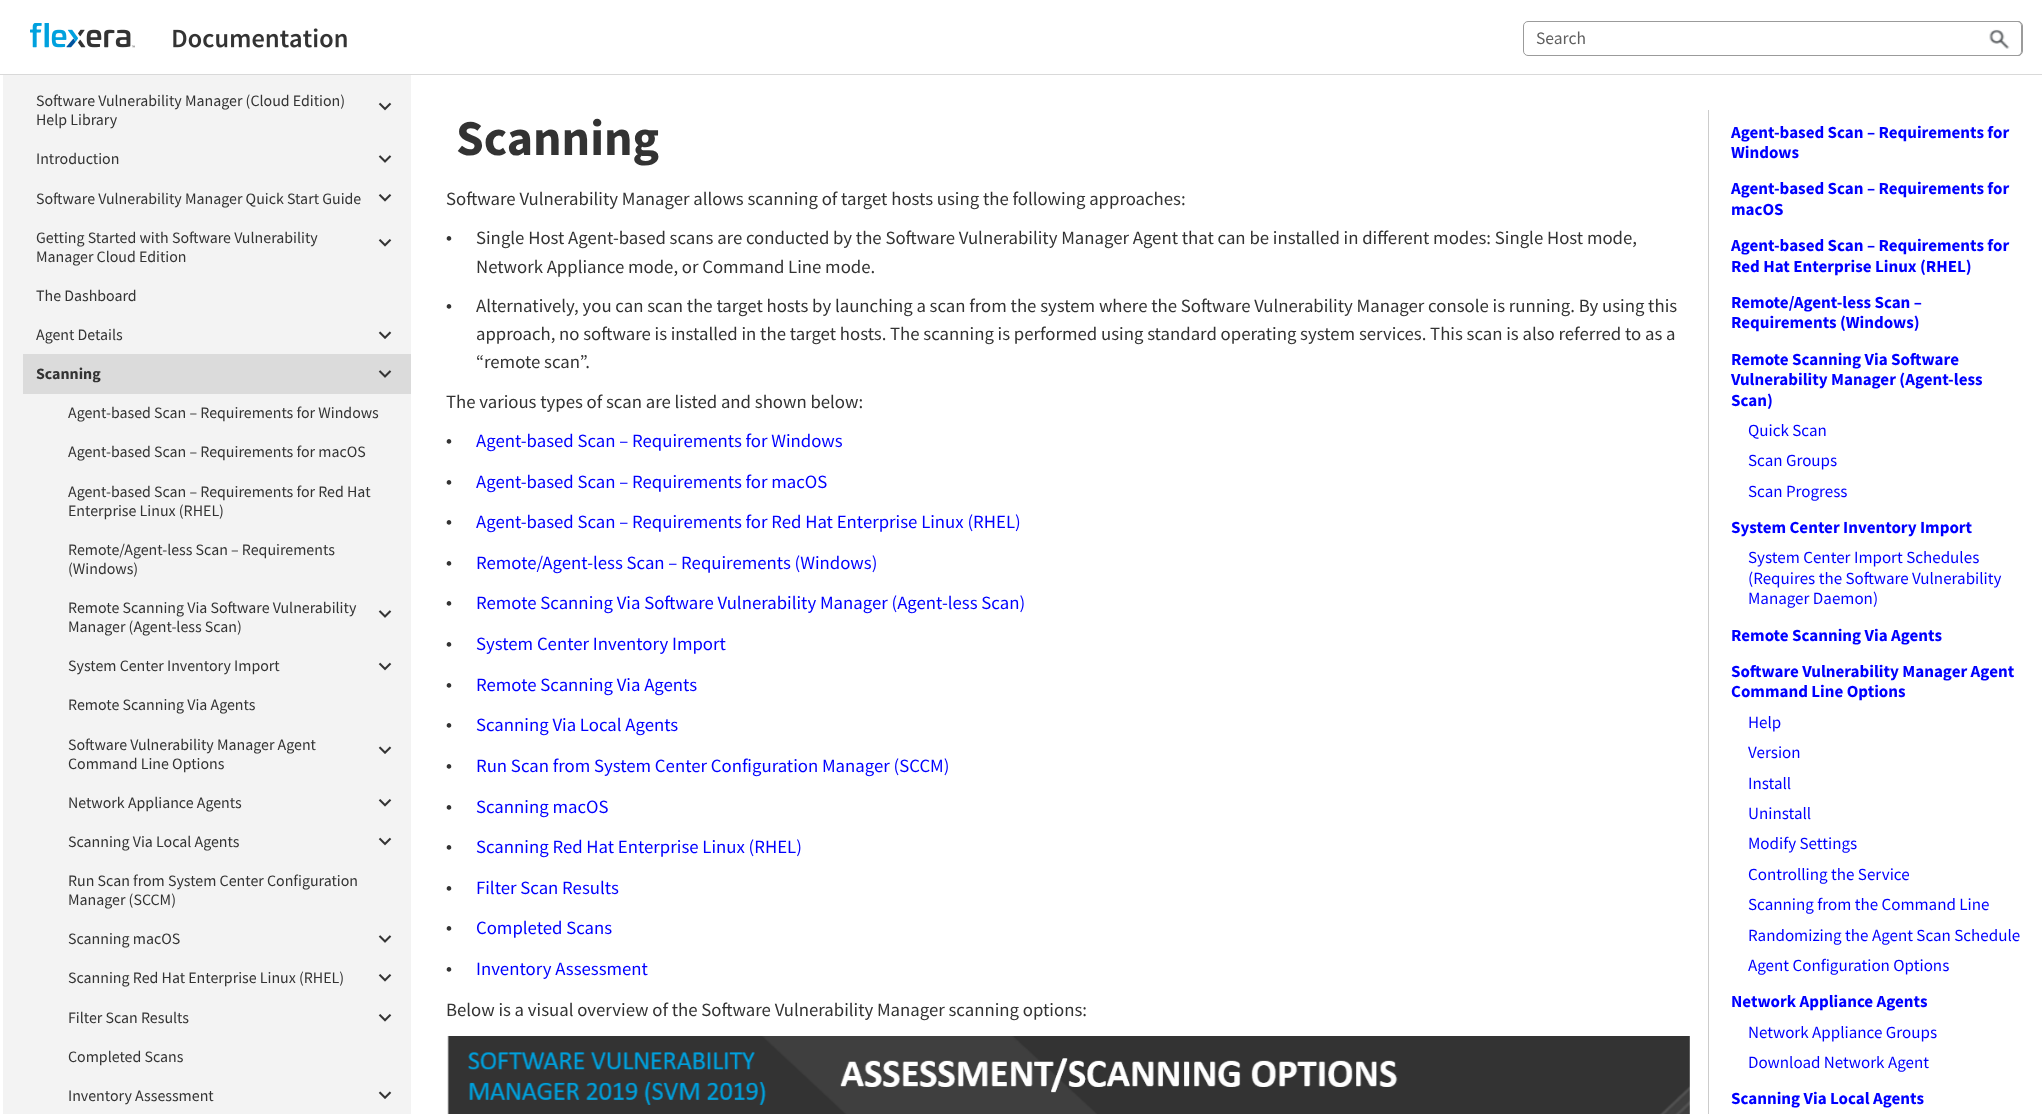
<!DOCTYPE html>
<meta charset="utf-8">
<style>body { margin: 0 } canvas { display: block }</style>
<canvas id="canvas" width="2042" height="1114"></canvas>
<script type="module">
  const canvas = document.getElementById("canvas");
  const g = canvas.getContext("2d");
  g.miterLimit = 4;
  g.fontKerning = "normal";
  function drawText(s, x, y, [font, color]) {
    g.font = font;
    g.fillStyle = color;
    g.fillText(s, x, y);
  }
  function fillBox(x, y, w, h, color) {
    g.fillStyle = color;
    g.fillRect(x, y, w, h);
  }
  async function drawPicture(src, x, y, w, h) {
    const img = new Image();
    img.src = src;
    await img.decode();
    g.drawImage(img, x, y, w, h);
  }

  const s1 = ["17.5px Source Sans Pro", "#5F5F5F"];
  const s2 = ["15.9px Source Sans Pro", "#333333"];
  const s3 = ["bold 15.9px Source Sans Pro", "#333333"];
  const s4 = ["bold 50px Source Sans Pro", "#333333"];
  const s5 = ["18.75px Source Sans Pro", "#333333"];
  const s6 = ["bold 17px Liberation Serif", "#333333"];
  const s7 = ["18.75px Source Sans Pro", "#0000FF"];
  const s8 = ["bold 17px Source Sans Pro", "#0000FF"];
  const s9 = ["17px Source Sans Pro", "#0000FF"];

  fillBox(0, 0, 2042, 1114, "#FFFFFF");
  fillBox(0, 74, 2042, 1, "#D9D9D9");
  await drawPicture("pic1.png", 30, 23, 317, 25);
  g.beginPath();
  g.roundRect(1523.5, 21.5, 499, 34, 4.5);
  g.strokeStyle = "#9B9B9B";
  g.stroke();
  drawText("Search", 1536, 44, s1);
  await drawPicture("pic2.png", 1989, 29, 21, 20);
  g.fillStyle = "#9B9B9B";
  g.beginPath();
  g.moveTo(1978, 21);
  g.lineTo(2018, 21);
  g.bezierCurveTo(2020, 21, 2022, 23, 2022, 26);
  g.lineTo(2022, 51);
  g.bezierCurveTo(2022, 54, 2020, 56, 2018, 56);
  g.lineTo(1978, 56);
  g.closePath();
  g.moveTo(1978, 22);
  g.lineTo(2018, 22);
  g.bezierCurveTo(2020, 22, 2021, 24, 2021, 26);
  g.lineTo(2021, 51);
  g.bezierCurveTo(2021, 53, 2020, 55, 2018, 55);
  g.lineTo(1978, 55);
  g.closePath();
  g.fill("evenodd");
  fillBox(3, 75, 408, 1039, "#F3F3F3");
  drawText("Software Vulnerability Manager (Cloud Edition)", 36, 106, s2);
  await drawPicture("pic3.png", 378, 102, 14, 9);
  drawText("Help Library", 36, 125, s2);
  drawText("Introduction", 36, 164, s2);
  await drawPicture("pic4.png", 378, 155, 14, 8);
  drawText("Software Vulnerability Manager Quick Start Guide", 36, 204, s2);
  await drawPicture("pic5.png", 378, 194, 14, 8);
  drawText("Getting Started with Software Vulnerability", 36, 243, s2);
  await drawPicture("pic5.png", 378, 239, 14, 8);
  drawText("Manager Cloud Edition", 36, 262, s2);
  drawText("The Dashboard", 36, 301, s2);
  drawText("Agent Details", 36, 340, s2);
  await drawPicture("pic6.png", 378, 331, 14, 8);
  fillBox(23, 354, 388, 40, "#DBDBDB");
  drawText("Scanning", 36, 379, s3);
  await drawPicture("pic7.png", 378, 370, 14, 8);
  drawText("Agent-based Scan – Requirements for Windows", 68, 418, s2);
  drawText("Agent-based Scan – Requirements for macOS", 68, 457, s2);
  drawText("Agent-based Scan – Requirements for Red Hat", 68, 497, s2);
  drawText("Enterprise Linux (RHEL)", 68, 516, s2);
  drawText("Remote/Agent-less Scan – Requirements", 68, 555, s2);
  drawText("(Windows)", 68, 574, s2);
  drawText("Remote Scanning Via Software Vulnerability", 68, 613, s2);
  await drawPicture("pic4.png", 378, 610, 14, 8);
  drawText("Manager (Agent-less Scan)", 68, 632, s2);
  drawText("System Center Inventory Import", 68, 671, s2);
  await drawPicture("pic3.png", 378, 662, 14, 9);
  drawText("Remote Scanning Via Agents", 68, 710, s2);
  drawText("Software Vulnerability Manager Agent", 68, 750, s2);
  await drawPicture("pic6.png", 378, 746, 14, 8);
  drawText("Command Line Options", 68, 769, s2);
  drawText("Network Appliance Agents", 68, 808, s2);
  await drawPicture("pic5.png", 378, 799, 14, 8);
  drawText("Scanning Via Local Agents", 68, 847, s2);
  await drawPicture("pic3.png", 378, 837, 14, 9);
  drawText("Run Scan from System Center Configuration", 68, 886, s2);
  drawText("Manager (SCCM)", 68, 905, s2);
  drawText("Scanning macOS", 68, 944, s2);
  await drawPicture("pic4.png", 378, 935, 14, 8);
  drawText("Scanning Red Hat Enterprise Linux (RHEL)", 68, 983, s2);
  await drawPicture("pic5.png", 378, 974, 14, 8);
  drawText("Filter Scan Results", 68, 1023, s2);
  await drawPicture("pic5.png", 378, 1014, 14, 8);
  drawText("Completed Scans", 68, 1062, s2);
  drawText("Inventory Assessment", 68, 1101, s2);
  await drawPicture("pic6.png", 378, 1091, 14, 8);
  drawText("Scanning", 456, 155, s4);
  drawText("Software Vulnerability Manager allows scanning of target hosts using the following approaches:", 446, 205, s5);
  drawText("•", 446, 244, s6);
  drawText("Single Host Agent-based scans are conducted by the Software Vulnerability Manager Agent that can be installed in different modes: Single Host mode,", 476, 244, s5);
  drawText("Network Appliance mode, or Command Line mode.", 476, 273, s5);
  drawText("•", 446, 312, s6);
  drawText("Alternatively, you can scan the target hosts by launching a scan from the system where the Software Vulnerability Manager console is running. By using this", 476, 312, s5);
  drawText("approach, no software is installed in the target hosts. The scanning is performed using standard operating system services. This scan is also referred to as a", 476, 340, s5);
  drawText("“remote scan”.", 476, 368, s5);
  drawText("The various types of scan are listed and shown below:", 446, 408, s5);
  drawText("•", 446, 447, s6);
  drawText("Agent-based Scan – Requirements for Windows", 476, 447, s7);
  drawText("•", 446, 488, s6);
  drawText("Agent-based Scan – Requirements for macOS", 476, 488, s7);
  drawText("•", 446, 528, s6);
  drawText("Agent-based Scan – Requirements for Red Hat Enterprise Linux (RHEL)", 476, 528, s7);
  drawText("•", 446, 569, s6);
  drawText("Remote/Agent-less Scan – Requirements (Windows)", 476, 569, s7);
  drawText("•", 446, 609, s6);
  drawText("Remote Scanning Via Software Vulnerability Manager (Agent-less Scan)", 476, 609, s7);
  drawText("•", 446, 650, s6);
  drawText("System Center Inventory Import", 476, 650, s7);
  drawText("•", 446, 691, s6);
  drawText("Remote Scanning Via Agents", 476, 691, s7);
  drawText("•", 446, 731, s6);
  drawText("Scanning Via Local Agents", 476, 731, s7);
  drawText("•", 446, 772, s6);
  drawText("Run Scan from System Center Configuration Manager (SCCM)", 476, 772, s7);
  drawText("•", 446, 813, s6);
  drawText("Scanning macOS", 476, 813, s7);
  drawText("•", 446, 853, s6);
  drawText("Scanning Red Hat Enterprise Linux (RHEL)", 476, 853, s7);
  drawText("•", 446, 894, s6);
  drawText("Filter Scan Results", 476, 894, s7);
  drawText("•", 446, 934, s6);
  drawText("Completed Scans", 476, 934, s7);
  drawText("•", 446, 975, s6);
  drawText("Inventory Assessment", 476, 975, s7);
  drawText("Below is a visual overview of the Software Vulnerability Manager scanning options:", 446, 1016, s5);
  await drawPicture("pic8.png", 447, 1036, 1243, 78);
  fillBox(1708, 110, 1, 1004, "#CCCCCC");
  drawText("Agent-based Scan – Requirements for", 1731, 138, s8);
  drawText("Windows", 1731, 158, s8);
  drawText("Agent-based Scan – Requirements for", 1731, 194, s8);
  drawText("macOS", 1731, 215, s8);
  drawText("Agent-based Scan – Requirements for", 1731, 251, s8);
  drawText("Red Hat Enterprise Linux (RHEL)", 1731, 272, s8);
  drawText("Remote/Agent-less Scan –", 1731, 308, s8);
  drawText("Requirements (Windows)", 1731, 328, s8);
  drawText("Remote Scanning Via Software", 1731, 365, s8);
  drawText("Vulnerability Manager (Agent-less", 1731, 385, s8);
  drawText("Scan)", 1731, 406, s8);
  drawText("Quick Scan", 1748, 436, s9);
  drawText("Scan Groups", 1748, 466, s9);
  drawText("Scan Progress", 1748, 497, s9);
  drawText("System Center Inventory Import", 1731, 533, s8);
  drawText("System Center Import Schedules", 1748, 563, s9);
  drawText("(Requires the Software Vulnerability", 1748, 584, s9);
  drawText("Manager Daemon)", 1748, 604, s9);
  drawText("Remote Scanning Via Agents", 1731, 641, s8);
  drawText("Software Vulnerability Manager Agent", 1731, 677, s8);
  drawText("Command Line Options", 1731, 697, s8);
  drawText("Help", 1748, 728, s9);
  drawText("Version", 1748, 758, s9);
  drawText("Install", 1748, 789, s9);
  drawText("Uninstall", 1748, 819, s9);
  drawText("Modify Settings", 1748, 849, s9);
  drawText("Controlling the Service", 1748, 880, s9);
  drawText("Scanning from the Command Line", 1748, 910, s9);
  drawText("Randomizing the Agent Scan Schedule", 1748, 941, s9);
  drawText("Agent Configuration Options", 1748, 971, s9);
  drawText("Network Appliance Agents", 1731, 1007, s8);
  drawText("Network Appliance Groups", 1748, 1038, s9);
  drawText("Download Network Agent", 1748, 1068, s9);
  drawText("Scanning Via Local Agents", 1731, 1104, s8);
</script>
